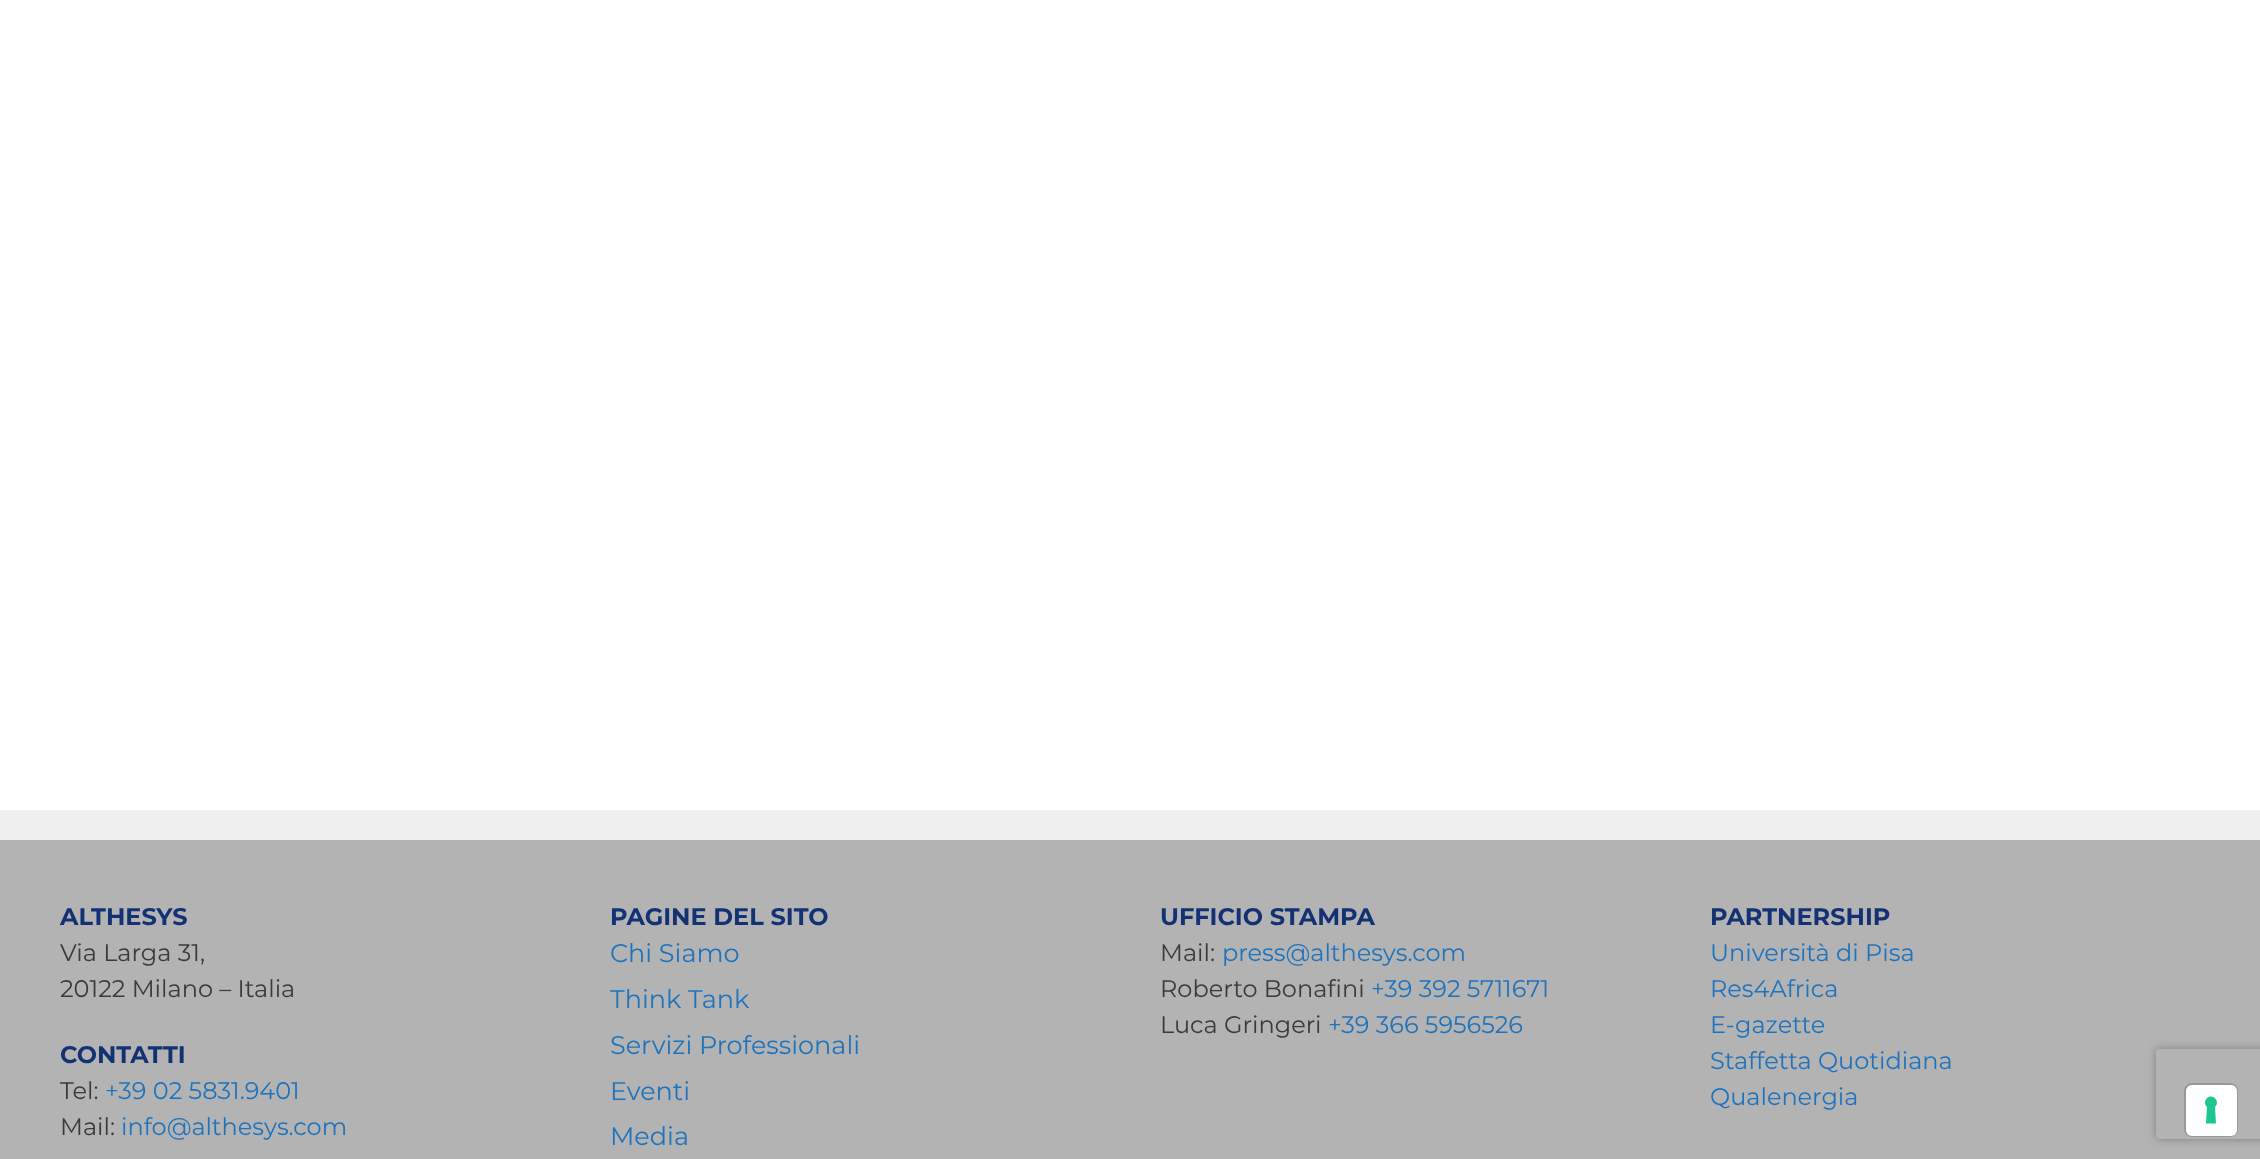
<!DOCTYPE html>
<meta charset="utf-8">
<style>body { margin: 0 } canvas { display: block }</style>
<canvas id="canvas" width="2260" height="1159"></canvas>
<script type="module">
  const canvas = document.getElementById("canvas");
  const g = canvas.getContext("2d");
  g.miterLimit = 4;
  g.fontKerning = "normal";
  function drawText(s, x, y, [font, color]) {
    g.font = font;
    g.fillStyle = color;
    g.fillText(s, x, y);
  }
  function fillBox(x, y, w, h, color) {
    g.fillStyle = color;
    g.fillRect(x, y, w, h);
  }
  function fillRounded(x, y, w, h, r, color) {
    g.fillStyle = color;
    g.beginPath();
    g.roundRect(x, y, w, h, r);
    g.fill();
  }

  const s1 = ["bold 24px Montserrat", "#123274"];
  const s2 = ["24px Montserrat", "#3A3A3A"];
  const s3 = ["24px Montserrat", "#1E73BE"];
  const s4 = ["25.5px Montserrat", "#1E73BE"];

  fillBox(0, 0, 2260, 1159, "#EFEFEF");
  fillBox(0, 0, 2260, 810, "#FFFFFF");
  fillBox(0, 840, 2260, 319, "#B3B3B3");
  drawText("ALTHESYS", 60, 925, s1);
  drawText("Via Larga 31,", 60, 961, s2);
  drawText("20122 Milano – Italia", 60, 997, s2);
  drawText("CONTATTI", 60, 1063, s1);
  drawText("Tel:", 60, 1099, s2);
  drawText("+39 02 5831.9401", 105, 1099, s3);
  drawText("Mail:", 60, 1135, s2);
  drawText("info@althesys.com", 121, 1135, s3);
  drawText("PAGINE DEL SITO", 610, 925, s1);
  drawText("Chi Siamo", 610, 962, s4);
  drawText("Think Tank", 610, 1008, s4);
  drawText("Servizi Professionali", 610, 1054, s4);
  drawText("Eventi", 610, 1100, s4);
  drawText("Media", 610, 1145, s4);
  drawText("UFFICIO STAMPA", 1160, 925, s1);
  drawText("Mail:", 1160, 961, s2);
  drawText("press@althesys.com", 1222, 961, s3);
  drawText("Roberto Bonafini", 1160, 997, s2);
  drawText("+39 392 5711671", 1371, 997, s3);
  drawText("Luca Gringeri", 1160, 1033, s2);
  drawText("+39 366 5956526", 1328, 1033, s3);
  drawText("PARTNERSHIP", 1710, 925, s1);
  drawText("Università di Pisa", 1710, 961, s3);
  drawText("Res4Africa", 1710, 997, s3);
  drawText("E-gazette", 1710, 1033, s3);
  drawText("Staffetta Quotidiana", 1710, 1069, s3);
  drawText("Qualenergia", 1710, 1105, s3);
  g.save();
  g.beginPath();
  g.moveTo(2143, 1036);
  g.lineTo(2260, 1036);
  g.lineTo(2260, 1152);
  g.lineTo(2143, 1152);
  g.closePath();
  g.moveTo(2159, 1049);
  g.lineTo(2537, 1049);
  g.bezierCurveTo(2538.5, 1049, 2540, 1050.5, 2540, 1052);
  g.lineTo(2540, 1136);
  g.bezierCurveTo(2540, 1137.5, 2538.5, 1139, 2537, 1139);
  g.lineTo(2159, 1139);
  g.bezierCurveTo(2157.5, 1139, 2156, 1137.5, 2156, 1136);
  g.lineTo(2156, 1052);
  g.bezierCurveTo(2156, 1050.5, 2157.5, 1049, 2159, 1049);
  g.closePath();
  g.clip("evenodd");
  g.fillStyle = "#808080";
  g.filter = "blur(4px)";
  g.beginPath();
  g.roundRect(2156, 1049, 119, 90, 3);
  g.fill();
  g.filter = "none";
  g.restore();
  g.beginPath();
  g.roundRect(2185, 1084, 52, 52, 7);
  g.strokeStyle = "#989898";
  g.lineWidth = 2;
  g.stroke();
  fillRounded(2186, 1085, 51, 51, 6, "#FFFFFF");
  g.fillStyle = "#1CC691";
  g.beginPath();
  g.moveTo(2211, 1096.5);
  g.bezierCurveTo(2216.5, 1096.5, 2219, 1103.5, 2215, 1107);
  g.lineTo(2216, 1123.5);
  g.lineTo(2206, 1123.5);
  g.lineTo(2207, 1107);
  g.bezierCurveTo(2203, 1103.5, 2205.5, 1096.5, 2211, 1096.5);
  g.closePath();
  g.fill("evenodd");
</script>
